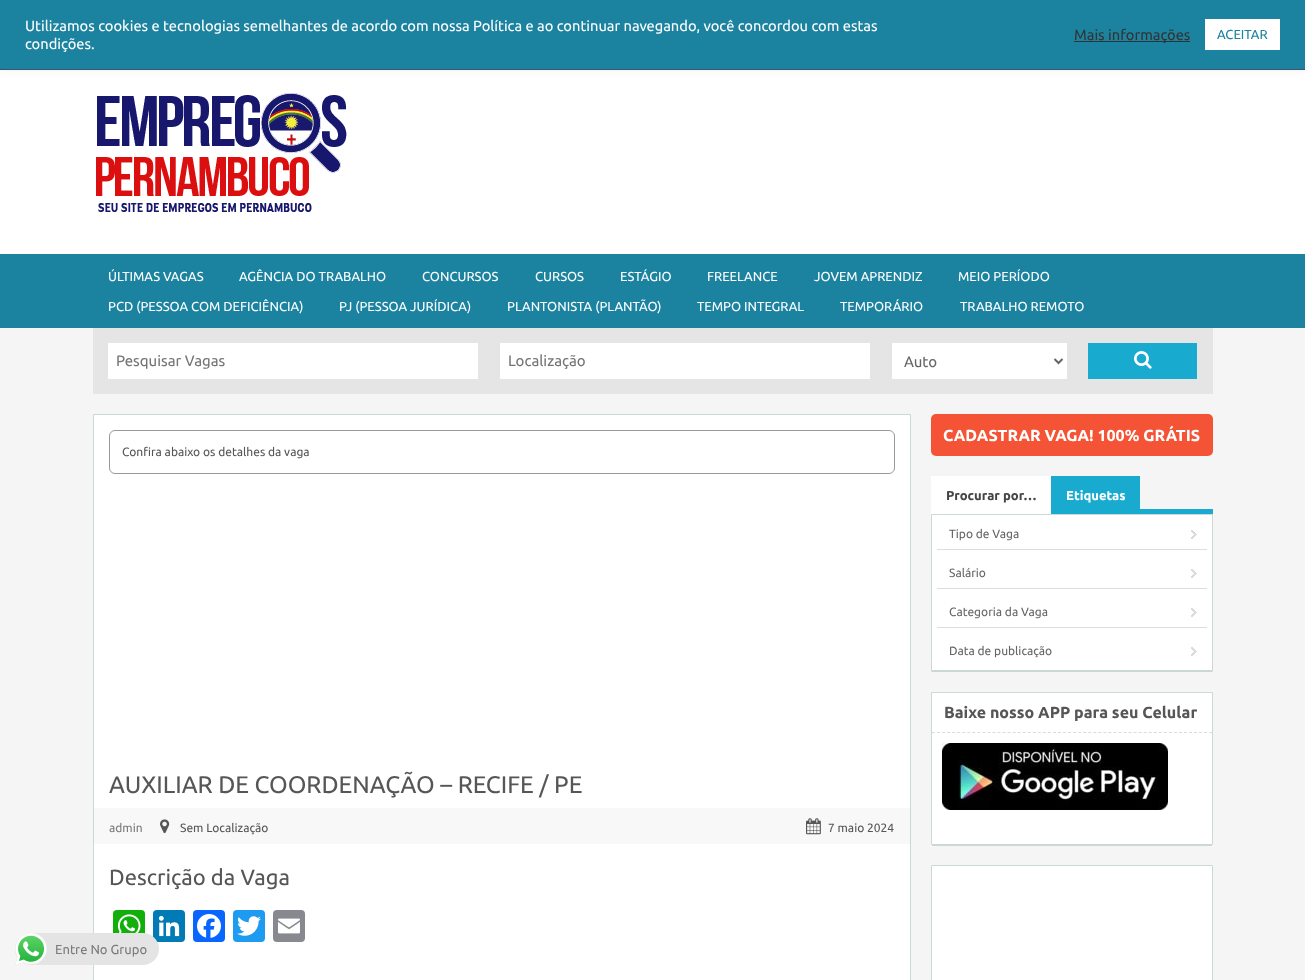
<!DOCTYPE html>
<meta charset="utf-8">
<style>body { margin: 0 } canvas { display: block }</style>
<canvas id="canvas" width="1305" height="980"></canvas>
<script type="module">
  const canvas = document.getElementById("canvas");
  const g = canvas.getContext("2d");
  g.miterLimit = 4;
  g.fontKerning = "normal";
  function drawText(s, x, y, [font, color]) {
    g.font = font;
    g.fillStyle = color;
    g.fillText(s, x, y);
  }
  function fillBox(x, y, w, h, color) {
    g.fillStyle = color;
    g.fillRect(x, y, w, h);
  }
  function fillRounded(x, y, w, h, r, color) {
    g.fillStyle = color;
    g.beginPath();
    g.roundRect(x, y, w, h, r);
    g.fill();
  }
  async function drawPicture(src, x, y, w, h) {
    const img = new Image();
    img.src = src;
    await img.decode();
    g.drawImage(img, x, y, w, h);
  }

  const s1 = ["14.67px Ubuntu", "#FFFFFF"];
  const s2 = ["14.67px Ubuntu", "#333333"];
  const s3 = ["13px Ubuntu", "#1B83A0"];
  const s4 = ["13px Ubuntu", "#FFFFFF"];
  const s5 = ["15px Ubuntu", "#757575"];
  const s6 = ["15px Ubuntu", "#666666"];
  const s7 = ["12px Ubuntu", "#555655"];
  const s8 = ["24px Ubuntu", "#555655"];
  const s9 = ["12px Ubuntu", "#7B7B7B"];
  const s10 = ["22px Ubuntu", "#555655"];
  const s11 = ["bold 16px Ubuntu", "#FFFFFF"];
  const s12 = ["bold 13px Ubuntu", "#454545"];
  const s13 = ["bold 13px Ubuntu", "#FFFFFF"];
  const s14 = ["12px Ubuntu", "#666666"];
  const s15 = ["bold 16px Ubuntu", "#555655"];
  const s16 = ["13px Ubuntu", "#7B7B7B"];

  fillBox(0, 0, 1305, 980, "#F5F5F5");
  fillBox(0, 69, 1305, 1, "#2C4975");
  fillBox(0, 70, 1305, 184, "#FFFFFF");
  g.fillStyle = "rgba(172, 171, 171, 0.3)";
  g.filter = "blur(5px)";
  g.beginPath();
  g.rect(0, -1, 1305, 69);
  g.fill();
  g.filter = "none";
  fillBox(0, 0, 1305, 69, "#1B83A0");
  drawText("Utilizamos cookies e tecnologias semelhantes de acordo com nossa Política e ao continuar navegando, você concordou com estas", 25, 31, s1);
  drawText("condições.", 25, 49, s1);
  fillBox(1074, 41, 116, 1, "#333333");
  drawText("Mais informações", 1074, 40, s2);
  fillBox(1205, 19, 75, 31, "#FFFFFF");
  drawText("ACEITAR", 1217, 39, s3);
  await drawPicture("pic1.png", 96, 93, 251, 119);
  fillBox(0, 254, 1305, 74, "#1B83A0");
  drawText("ÚLTIMAS VAGAS", 108, 281, s4);
  drawText("AGÊNCIA DO TRABALHO", 239, 281, s4);
  drawText("CONCURSOS", 422, 281, s4);
  drawText("CURSOS", 535, 281, s4);
  drawText("ESTÁGIO", 620, 281, s4);
  drawText("FREELANCE", 707, 281, s4);
  drawText("JOVEM APRENDIZ", 814, 281, s4);
  drawText("MEIO PERÍODO", 958, 281, s4);
  drawText("PCD (PESSOA COM DEFICIÊNCIA)", 108, 311, s4);
  drawText("PJ (PESSOA JURÍDICA)", 339, 311, s4);
  drawText("PLANTONISTA (PLANTÃO)", 507, 311, s4);
  drawText("TEMPO INTEGRAL", 697, 311, s4);
  drawText("TEMPORÁRIO", 840, 311, s4);
  drawText("TRABALHO REMOTO", 960, 311, s4);
  fillBox(93, 328, 1120, 66, "#E5E5E5");
  fillBox(108, 343, 370, 36, "#FFFFFF");
  drawText("Pesquisar Vagas", 116, 366, s5);
  fillBox(500, 343, 370, 36, "#FFFFFF");
  drawText("Localização", 508, 366, s5);
  fillBox(892, 343, 175, 36, "#FFFFFF");
  g.beginPath();
  g.moveTo(1054.5, 359);
  g.lineTo(1058.5, 363);
  g.lineTo(1062.5, 359);
  g.strokeStyle = "#666666";
  g.lineWidth = 2;
  g.stroke();
  drawText("Auto", 904, 367, s6);
  fillBox(1088, 343, 109, 36, "#19AACF");
  await drawPicture("pic2.png", 1134, 351, 18, 18);
  g.fillStyle = "#FFFFFF";
  g.beginPath();
  g.rect(93.5, 414.5, 817, 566);
  g.fill();
  g.strokeStyle = "#CBD8D8";
  g.lineWidth = 1;
  g.stroke();
  g.beginPath();
  g.roundRect(109.5, 430.5, 785, 43, 5.5);
  g.strokeStyle = "#999999";
  g.stroke();
  drawText("Confira abaixo os detalhes da vaga", 122, 456, s7);
  drawText("AUXILIAR DE COORDENAÇÃO – RECIFE / PE", 109, 793, s8);
  fillBox(94, 808, 816, 36, "#F8F8F8");
  drawText("admin", 109, 832, s9);
  await drawPicture("pic3.png", 160, 819, 10, 15);
  drawText("Sem Localização", 180, 832, s7);
  await drawPicture("pic4.png", 806, 818, 15, 17);
  drawText("7 maio 2024", 828, 832, s7);
  drawText("Descrição da Vaga", 109, 885, s10);
  fillRounded(113, 910, 32, 32, 4, "#12AF0A");
  await drawPicture("pic5.png", 117, 914, 24, 19);
  fillRounded(153, 910, 32, 32, 4, "#007BB5");
  await drawPicture("pic6.png", 158, 915, 22, 22);
  fillRounded(193, 910, 32, 32, 4, "#0866FF");
  await drawPicture("pic7.png", 197, 914, 24, 24);
  fillRounded(233, 910, 32, 32, 4, "#1D9BF0");
  await drawPicture("pic8.png", 237, 916, 24, 20);
  fillRounded(273, 910, 32, 32, 4, "#888990");
  await drawPicture("pic9.png", 278, 918, 22, 16);
  fillRounded(931, 414, 282, 42, 5, "#F45435");
  drawText("CADASTRAR VAGA! 100% GRÁTIS", 943, 441, s11);
  fillBox(931, 671, 282, 1, "#DDDDDD");
  fillBox(1140, 509, 73, 5, "#19AACF");
  fillBox(931, 476, 120, 38, "#FFFFFF");
  drawText("Procurar por…", 946, 500, s12);
  fillBox(1051, 476, 89, 38, "#19AACF");
  drawText("Etiquetas", 1066, 500, s13);
  fillBox(932, 671, 280, 1, "#CBD8D8");
  g.fillStyle = "#FFFFFF";
  g.beginPath();
  g.rect(931.5, 514.5, 281, 156);
  g.fill();
  g.strokeStyle = "#CBD8D8";
  g.stroke();
  await drawPicture("pic10.png", 1191, 530, 6, 9);
  fillBox(937, 549, 270, 1, "#DDDDDD");
  drawText("Tipo de Vaga", 949, 538, s14);
  await drawPicture("pic10.png", 1191, 569, 6, 9);
  fillBox(937, 588, 270, 1, "#DDDDDD");
  drawText("Salário", 949, 577, s14);
  await drawPicture("pic10.png", 1191, 608, 6, 9);
  fillBox(937, 627, 270, 1, "#DDDDDD");
  drawText("Categoria da Vaga", 949, 616, s14);
  await drawPicture("pic10.png", 1191, 647, 6, 9);
  drawText("Data de publicação", 949, 655, s14);
  fillBox(932, 845, 280, 1, "#CBD8D8");
  g.fillStyle = "#FFFFFF";
  g.beginPath();
  g.rect(931.5, 692.5, 281, 152);
  g.fill();
  g.stroke();
  g.beginPath();
  g.moveTo(932, 732.5);
  g.lineTo(1212, 732.5);
  g.strokeStyle = "#DBDBDB";
  g.setLineDash([3, 2.04]);
  g.stroke();
  drawText("Baixe nosso APP para seu Celular", 944, 718, s15);
  await drawPicture("pic11.png", 942, 743, 226, 67);
  g.fillStyle = "#FFFFFF";
  g.beginPath();
  g.rect(931.5, 865.5, 281, 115);
  g.fill();
  g.strokeStyle = "#CBD8D8";
  g.setLineDash([]);
  g.stroke();
  fillRounded(15, 933, 144, 32, 16, "#E4E4E4");
  await drawPicture("pic12.png", 15, 933, 32, 32);
  drawText("Entre No Grupo", 55, 954, s16);
</script>
